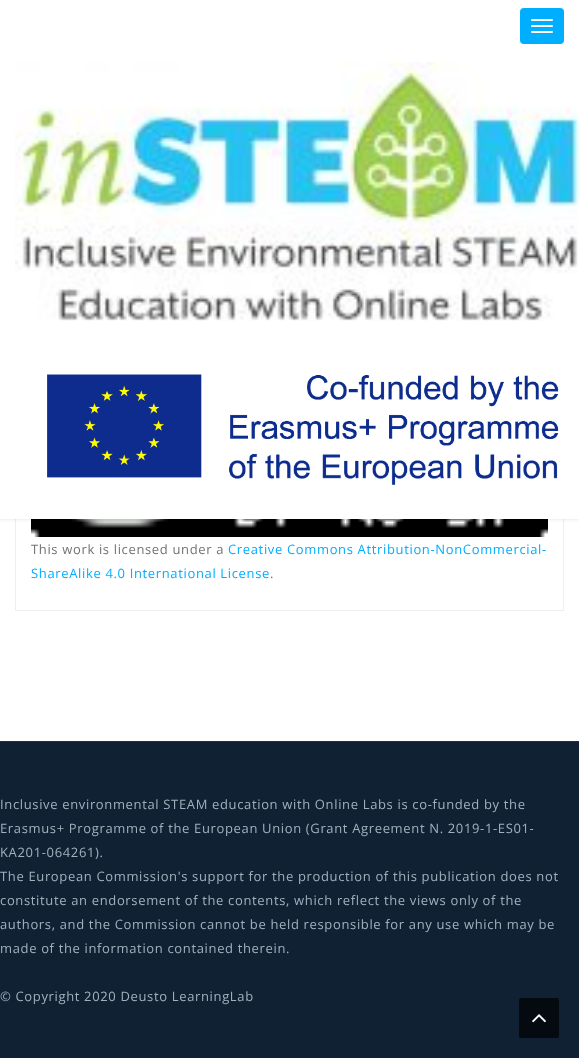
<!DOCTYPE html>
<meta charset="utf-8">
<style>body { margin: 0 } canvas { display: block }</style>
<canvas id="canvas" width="579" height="1058"></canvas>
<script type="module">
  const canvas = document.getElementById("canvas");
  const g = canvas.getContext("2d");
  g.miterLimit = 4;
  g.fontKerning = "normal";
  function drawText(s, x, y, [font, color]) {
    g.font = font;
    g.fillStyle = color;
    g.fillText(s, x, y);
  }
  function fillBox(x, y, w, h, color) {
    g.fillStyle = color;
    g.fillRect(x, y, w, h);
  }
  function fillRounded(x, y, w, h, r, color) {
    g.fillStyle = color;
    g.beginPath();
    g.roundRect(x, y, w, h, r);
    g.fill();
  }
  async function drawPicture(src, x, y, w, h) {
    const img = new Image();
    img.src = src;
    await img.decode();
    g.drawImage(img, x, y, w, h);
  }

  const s1 = ["13px Open Sans", "#737373"];
  const s2 = ["13px Open Sans", "#00AEFF"];
  const s3 = ["13px Open Sans", "#A1B1BC"];

  fillBox(0, 0, 579, 1058, "#FFFFFF");
  g.strokeStyle = "#EEEEEE";
  g.strokeRect(15.5, 339.5, 548, 271);
  await drawPicture("pic3.png", 31, 519, 517, 18);
  g.fillStyle = "rgba(0, 0, 0, 0.08)";
  g.filter = "blur(1.5px)";
  g.beginPath();
  g.rect(0, 1, 579, 519);
  g.fill();
  g.filter = "none";
  fillBox(0, 0, 579, 519, "#FFFFFF");
  fillRounded(520, 8, 44, 36, 4, "#00AEFF");
  fillRounded(531, 19, 22, 2, 1, "#FFFFFF");
  fillRounded(531, 25, 22, 2, 1, "#FFFFFF");
  fillRounded(531, 31, 22, 2, 1, "#FFFFFF");
  await drawPicture("pic1.png", 15, 62, 564, 259);
  await drawPicture("pic2.png", 47, 374, 512, 111);
  g.letterSpacing = "0.65px";
  drawText("This work is licensed under a", 31, 554, s1);
  drawText("Creative Commons Attribution-NonCommercial-", 228, 554, s2);
  drawText("ShareAlike 4.0 International License", 31, 578, s2);
  drawText(".", 270, 578, s1);
  fillBox(0, 742, 579, 316, "#112134");
  fillBox(0, 741, 579, 1, "#233346");
  drawText("Inclusive environmental STEAM education with Online Labs is co-funded by the", 0, 809, s3);
  drawText("Erasmus+ Programme of the European Union (Grant Agreement N. 2019-1-ES01-", 0, 833, s3);
  drawText("KA201-064261).", 0, 857, s3);
  drawText("The European Commission's support for the production of this publication does not", 0, 881, s3);
  drawText("constitute an endorsement of the contents, which reflect the views only of the", 0, 905, s3);
  drawText("authors, and the Commission cannot be held responsible for any use which may be", 0, 929, s3);
  drawText("made of the information contained therein.", 0, 953, s3);
  drawText("© Copyright 2020 Deusto LearningLab", 0, 1001, s3);
  fillRounded(519, 998, 40, 40, 2, "#050A10");
  await drawPicture("pic4.png", 532, 1014, 14, 9);
</script>
